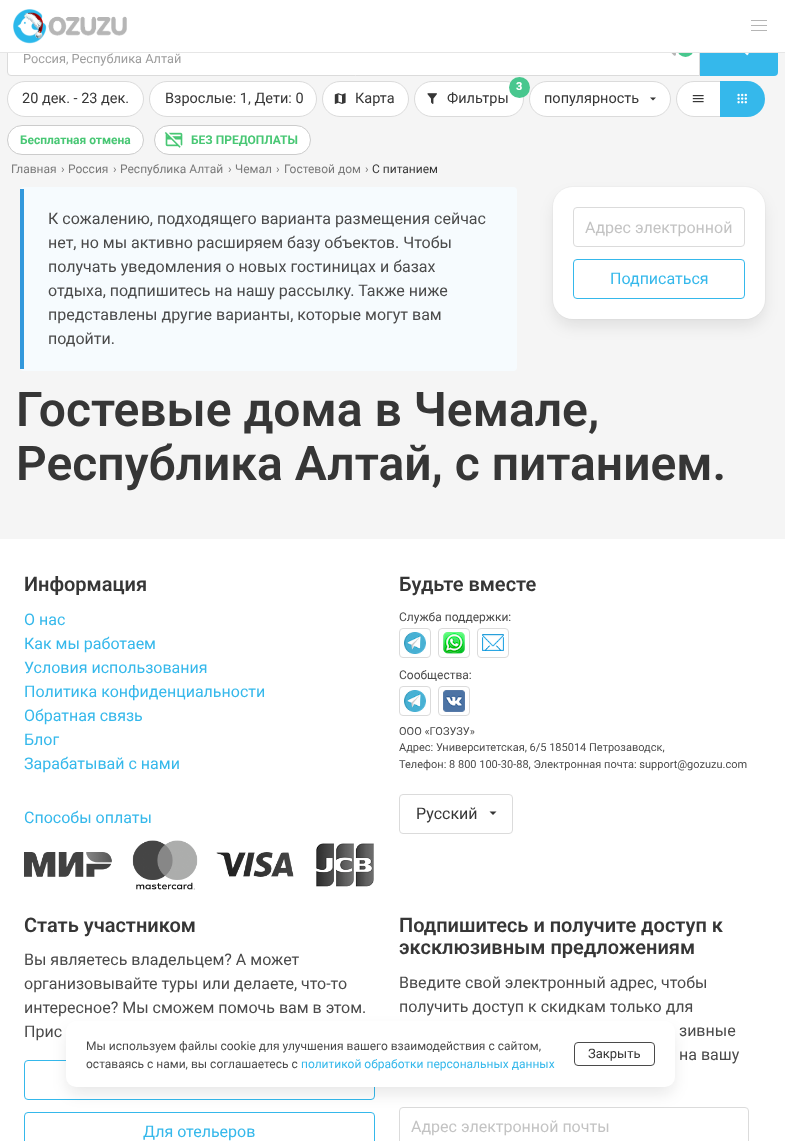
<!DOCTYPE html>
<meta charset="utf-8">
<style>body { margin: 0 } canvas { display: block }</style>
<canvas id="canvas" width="785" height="1141"></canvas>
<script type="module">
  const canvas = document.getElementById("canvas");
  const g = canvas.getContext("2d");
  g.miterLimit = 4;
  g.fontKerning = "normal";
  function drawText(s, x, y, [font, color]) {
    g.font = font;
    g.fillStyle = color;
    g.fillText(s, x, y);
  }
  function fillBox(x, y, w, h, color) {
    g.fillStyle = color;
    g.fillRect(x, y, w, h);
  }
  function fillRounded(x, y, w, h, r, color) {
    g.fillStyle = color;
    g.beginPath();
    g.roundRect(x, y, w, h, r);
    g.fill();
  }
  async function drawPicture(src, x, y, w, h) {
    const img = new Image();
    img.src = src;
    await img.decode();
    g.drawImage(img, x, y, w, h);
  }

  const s1 = ["12.75px Roboto", "#9D9D9D"];
  const s2 = ["14.5px Roboto", "#363636"];
  const s3 = ["800 11px Roboto", "#FFFFFF"];
  const s4 = ["bold 12px Roboto", "#48C774"];
  const s5 = ["12px Roboto", "#7A7A7A"];
  const s6 = ["12px Roboto", "#363636"];
  const s7 = ["16px Roboto", "#4A4A4A"];
  const s8 = ["16px Roboto", "#C3C3C3"];
  const s9 = ["16px Roboto", "#35B8EB"];
  const s10 = ["600 48px Roboto", "#363636"];
  const s11 = ["600 20px Roboto", "#363636"];
  const s12 = ["12px Roboto", "#4A4A4A"];
  const s13 = ["11px Roboto", "#4A4A4A"];
  const s14 = ["16px Roboto", "#363636"];
  const s15 = ["12px Roboto", "#35B8EB"];
  const s16 = ["13px Roboto", "#363636"];

  fillBox(0, 0, 785, 1141, "#F5F5F5");
  g.fillStyle = "#FFFFFF";
  g.beginPath();
  g.roundRect(7.5, 16.5, 692, 59, [3.5, 0, 0, 3.5]);
  g.fill();
  g.strokeStyle = "#DBDBDB";
  g.stroke();
  g.fillStyle = "#48C78E";
  g.beginPath();
  g.arc(685.5, 48.5, 8.5, 0, Math.PI * 2);
  g.fill();
  g.fillStyle = "#35B8EB";
  g.beginPath();
  g.roundRect(700, 16, 78, 60, [0, 4, 4, 0]);
  g.fill();
  fillBox(0, 0, 785, 52, "#FFFFFF");
  fillBox(0, 52, 785, 1, "#E6E6E6");
  await drawPicture("pic1.png", 13, 9, 34, 35);
  await drawPicture("pic2.png", 48, 16, 79, 20);
  fillBox(751, 20, 16, 1, "#B5B5B5");
  fillBox(751, 25, 16, 1, "#B5B5B5");
  fillBox(751, 30, 16, 1, "#B5B5B5");
  await drawPicture("pic3.png", 671, 53, 5, 3);
  drawText("Россия, Республика Алтай", 23, 63, s1);
  await drawPicture("pic4.png", 744, 53, 5, 3);
  g.fillStyle = "#FFFFFF";
  g.beginPath();
  g.roundRect(7.5, 81.5, 136, 35, 17.5);
  g.fill();
  g.stroke();
  drawText("20 дек. - 23 дек.", 22, 103, s2);
  g.fillStyle = "#FFFFFF";
  g.beginPath();
  g.roundRect(149.5, 81.5, 167, 35, 17.5);
  g.fill();
  g.stroke();
  drawText("Взрослые: 1, Дети: 0", 165, 103, s2);
  g.fillStyle = "#FFFFFF";
  g.beginPath();
  g.roundRect(322.5, 81.5, 86, 35, 17.5);
  g.fill();
  g.stroke();
  await drawPicture("pic5.png", 334, 93, 12, 11);
  drawText("Карта", 355, 103, s2);
  g.fillStyle = "#FFFFFF";
  g.beginPath();
  g.roundRect(414.5, 81.5, 109, 35, 17.5);
  g.fill();
  g.stroke();
  await drawPicture("pic6.png", 427, 93, 10, 11);
  g.fillStyle = "#48C78E";
  g.beginPath();
  g.arc(519.5, 87.5, 10.5, 0, Math.PI * 2);
  g.fill();
  drawText("3", 516, 90, s3);
  drawText("Фильтры", 447, 103, s2);
  g.fillStyle = "#FFFFFF";
  g.beginPath();
  g.roundRect(529.5, 81.5, 141, 35, 17.5);
  g.fill();
  g.stroke();
  drawText("популярность", 544, 103, s2);
  g.beginPath();
  g.moveTo(650, 97.5);
  g.lineTo(653, 100.5);
  g.lineTo(656, 97.5);
  g.closePath();
  g.fill();
  g.fillStyle = "#FFFFFF";
  g.beginPath();
  g.roundRect(676.5, 81.5, 44, 35, [17.5, 0, 0, 17.5]);
  g.fill();
  g.stroke();
  await drawPicture("pic7.png", 692, 95, 12, 8);
  g.fillStyle = "#35B8EB";
  g.beginPath();
  g.roundRect(720, 81, 45, 36, [0, 18, 18, 0]);
  g.fill();
  await drawPicture("pic8.png", 737, 93, 10, 11);
  g.fillStyle = "#FFFFFF";
  g.beginPath();
  g.roundRect(7.5, 125.5, 136, 29, 14.5);
  g.fill();
  g.strokeStyle = "#CCCCCC";
  g.stroke();
  drawText("Бесплатная отмена", 20, 144, s4);
  g.fillStyle = "#FFFFFF";
  g.beginPath();
  g.roundRect(154.5, 125.5, 156, 29, 14.5);
  g.fill();
  g.stroke();
  await drawPicture("pic9.png", 164, 132, 19, 16);
  drawText("БЕЗ ПРЕДОПЛАТЫ", 191, 144, s4);
  drawText("Главная", 11, 173, s5);
  drawText("›", 61, 173, s5);
  drawText("Россия", 68, 173, s5);
  drawText("›", 113, 173, s5);
  drawText("Республика Алтай", 120, 173, s5);
  drawText("›", 228, 173, s5);
  drawText("Чемал", 235, 173, s5);
  drawText("›", 276, 173, s5);
  drawText("Гостевой дом", 284, 173, s5);
  drawText("›", 365, 173, s5);
  drawText("С питанием", 372, 173, s6);
  fillRounded(20, 187, 497, 184, 4, "#F6FBFE");
  fillBox(20, 189, 4, 180, "#3298DC");
  drawText("К сожалению, подходящего варианта размещения сейчас", 48, 224, s7);
  drawText("нет, но мы активно расширяем базу объектов. Чтобы", 48, 248, s7);
  drawText("получать уведомления о новых гостиницах и базах", 48, 272, s7);
  drawText("отдыха, подпишитесь на нашу рассылку. Также ниже", 48, 296, s7);
  drawText("представлены другие варианты, которые могут вам", 48, 320, s7);
  drawText("подойти.", 48, 344, s7);
  g.beginPath();
  g.roundRect(552.5, 186.5, 213, 133, 20.5);
  g.strokeStyle = "#F0F0F0";
  g.stroke();
  g.fillStyle = "rgba(10, 10, 10, 0.1)";
  g.filter = "blur(8px)";
  g.beginPath();
  g.roundRect(555, 197, 208, 128, 18);
  g.fill();
  g.filter = "none";
  fillRounded(553, 187, 212, 132, 20, "#FFFFFF");
  g.beginPath();
  g.roundRect(573.5, 207.5, 171, 39, 3.5);
  g.strokeStyle = "#DBDBDB";
  g.stroke();
  drawText("Адрес электронной", 585, 233, s8);
  g.beginPath();
  g.roundRect(573.5, 259.5, 171, 39, 3.5);
  g.strokeStyle = "#35B8EB";
  g.stroke();
  drawText("Подписаться", 610, 284, s9);
  drawText("Гостевые дома в Чемале,", 16, 426, s10);
  drawText("Республика Алтай, с питанием.", 16, 480, s10);
  fillBox(0, 539, 785, 602, "#FFFFFF");
  drawText("Информация", 24, 591, s11);
  drawText("О нас", 24, 625, s9);
  drawText("Как мы работаем", 24, 649, s9);
  drawText("Условия использования", 24, 673, s9);
  drawText("Политика конфиденциальности", 24, 697, s9);
  drawText("Обратная связь", 24, 721, s9);
  drawText("Блог", 24, 745, s9);
  drawText("Зарабатывай с нами", 24, 769, s9);
  drawText("Способы оплаты", 24, 823, s9);
  await drawPicture("pic10.png", 24, 840, 350, 50);
  drawText("Будьте вместе", 399, 591, s11);
  drawText("Служба поддержки:", 399, 621, s12);
  g.beginPath();
  g.roundRect(399.5, 628.5, 31, 29, 3.5);
  g.strokeStyle = "#DBDBDB";
  g.stroke();
  await drawPicture("pic11.png", 404, 632, 22, 22);
  g.beginPath();
  g.roundRect(438.5, 628.5, 31, 29, 3.5);
  g.stroke();
  await drawPicture("pic12.png", 443, 632, 22, 22);
  g.beginPath();
  g.roundRect(477.5, 628.5, 31, 29, 3.5);
  g.stroke();
  await drawPicture("pic13.png", 482, 634, 22, 17);
  drawText("Сообщества:", 399, 679, s12);
  g.beginPath();
  g.roundRect(399.5, 686.5, 31, 29, 3.5);
  g.stroke();
  await drawPicture("pic11.png", 404, 690, 22, 22);
  g.beginPath();
  g.roundRect(438.5, 686.5, 31, 29, 3.5);
  g.stroke();
  await drawPicture("pic14.png", 443, 690, 22, 22);
  drawText("ООО «ГОЗУЗУ»", 399, 735, s13);
  drawText("Адрес: Университетская, 6/5 185014 Петрозаводск,", 399, 751, s13);
  drawText("Телефон: 8 800 100-30-88, Электронная почта: support@gozuzu.com", 399, 768, s13);
  g.beginPath();
  g.roundRect(399.5, 794.5, 113, 39, 3.5);
  g.stroke();
  drawText("Русский", 416, 819, s14);
  g.beginPath();
  g.moveTo(489.5, 811.5);
  g.lineTo(493, 815);
  g.lineTo(496.5, 811.5);
  g.closePath();
  g.fill();
  drawText("Стать участником", 24, 932, s11);
  drawText("Вы являетесь владельцем? А может", 24, 965, s7);
  drawText("организовывайте туры или делаете, что-то", 24, 989, s7);
  drawText("интересное? Мы сможем помочь вам в этом.", 24, 1013, s7);
  drawText("Прис", 24, 1037, s7);
  g.beginPath();
  g.roundRect(24.5, 1060.5, 350, 39, 3.5);
  g.strokeStyle = "#35B8EB";
  g.stroke();
  g.beginPath();
  g.roundRect(24.5, 1112.5, 350, 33, 3.5);
  g.stroke();
  drawText("Для отельеров", 143, 1137, s9);
  drawText("Подпишитесь и получите доступ к", 399, 932, s11);
  drawText("эксклюзивным предложениям", 399, 954, s11);
  drawText("Введите свой электронный адрес, чтобы", 399, 988, s7);
  drawText("получить доступ к скидкам только для", 399, 1012, s7);
  drawText("зивные", 679, 1036, s7);
  drawText("на вашу", 679, 1060, s7);
  g.beginPath();
  g.roundRect(399.5, 1107.5, 349, 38, 3.5);
  g.strokeStyle = "#DBDBDB";
  g.stroke();
  drawText("Адрес электронной почты", 411, 1132, s8);
  g.fillStyle = "rgba(10, 10, 10, 0.1)";
  g.filter = "blur(8px)";
  g.beginPath();
  g.roundRect(68, 1031, 605, 62, 8);
  g.fill();
  g.filter = "none";
  fillRounded(66, 1021, 609, 66, 10, "#FFFFFF");
  drawText("Мы используем файлы cookie для улучшения вашего взаимодействия с сайтом,", 86, 1050, s12);
  drawText("оставаясь с нами, вы соглашаетесь c", 86, 1068, s12);
  drawText("политикой обработки персональных данных", 301, 1068, s15);
  g.beginPath();
  g.roundRect(574.5, 1042.5, 80, 23, 3.5);
  g.strokeStyle = "#4A4A4A";
  g.stroke();
  drawText("Закрыть", 588, 1058, s16);
</script>
